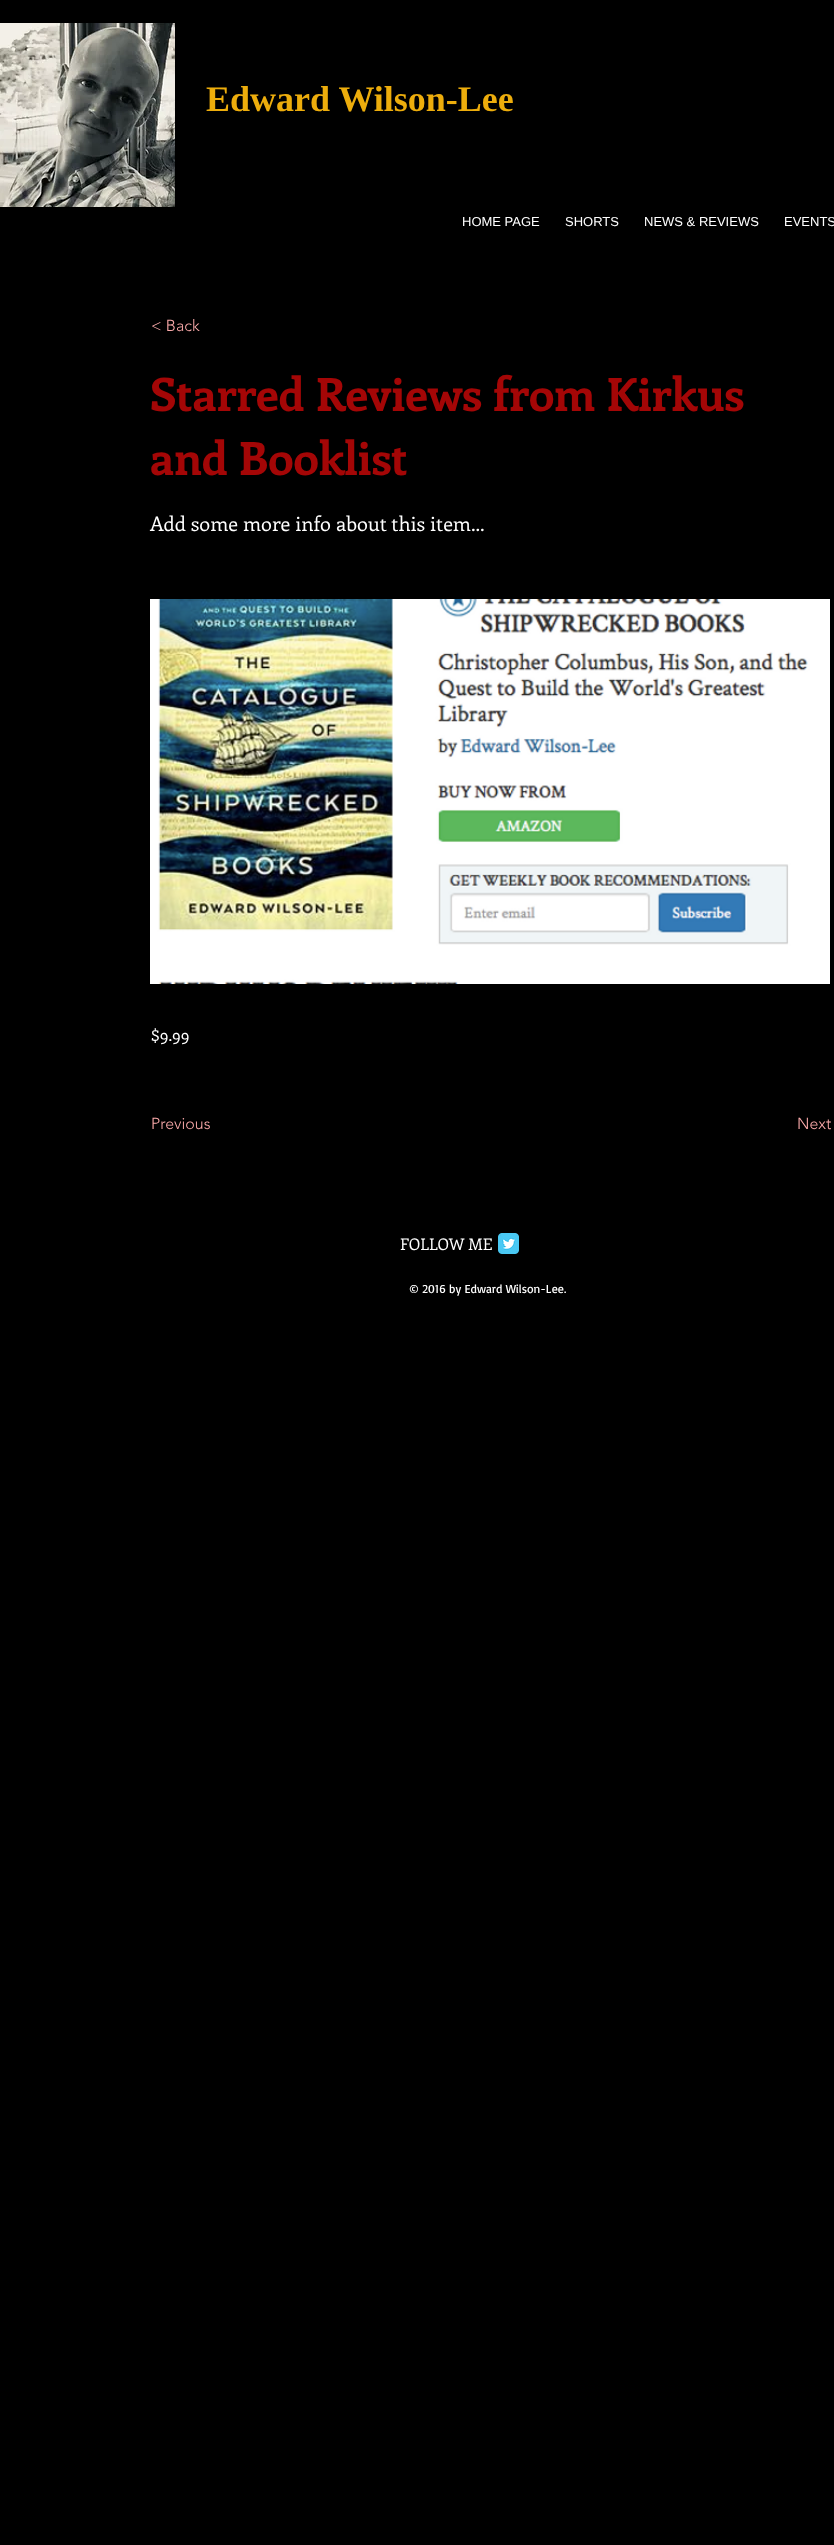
<!DOCTYPE html>
<meta charset="utf-8">
<style>body { margin: 0 } canvas { display: block }</style>
<canvas id="canvas" width="834" height="2545"></canvas>
<script type="module">
  const canvas = document.getElementById("canvas");
  const g = canvas.getContext("2d");
  g.miterLimit = 4;
  g.fontKerning = "normal";
  function drawText(s, x, y, [font, color]) {
    g.font = font;
    g.fillStyle = color;
    g.fillText(s, x, y);
  }
  function fillBox(x, y, w, h, color) {
    g.fillStyle = color;
    g.fillRect(x, y, w, h);
  }
  async function drawPicture(src, x, y, w, h) {
    const img = new Image();
    img.src = src;
    await img.decode();
    g.drawImage(img, x, y, w, h);
  }

  const s1 = ["bold 36px Liberation Serif", "#EDAD0C"];
  const s2 = ["13px Liberation Sans", "#FFFFFF"];
  const s3 = ["300 16px 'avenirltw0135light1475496'", "#FCABAB"];
  const s4 = ["bold 46px Enriqueta", "#A40606"];
  const s5 = ["20px Enriqueta", "#FFFFFF"];
  const s6 = ["16px Enriqueta", "#FFFFFF"];
  const s7 = ["12px Basic", "#FFFFFF"];

  fillBox(0, 0, 834, 2545, "#000000");
  await drawPicture("pic1.png", 0, 23, 175, 184);
  drawText("Edward Wilson-Lee", 206, 111, s1);
  drawText("HOME PAGE", 462, 226, s2);
  drawText("SHORTS", 565, 226, s2);
  drawText("NEWS & REVIEWS", 644, 226, s2);
  drawText("EVENTS", 784, 226, s2);
  drawText("< Back", 151, 331, s3);
  drawText("Starred Reviews from Kirkus", 150, 411, s4);
  drawText("and Booklist", 150, 475, s4);
  drawText("Add some more info about this item...", 150, 531, s5);
  await drawPicture("pic2.png", 150, 599, 680, 385);
  drawText("$9.99", 151, 1041, s6);
  drawText("Previous", 151, 1129, s3);
  drawText("Next", 797, 1129, s3);
  drawText("FOLLOW ME", 400, 1250, s6);
  await drawPicture("pic3.png", 498, 1233, 21, 21);
  drawText("© 2016 by Edward Wilson-Lee.", 409, 1293, s7);
</script>
